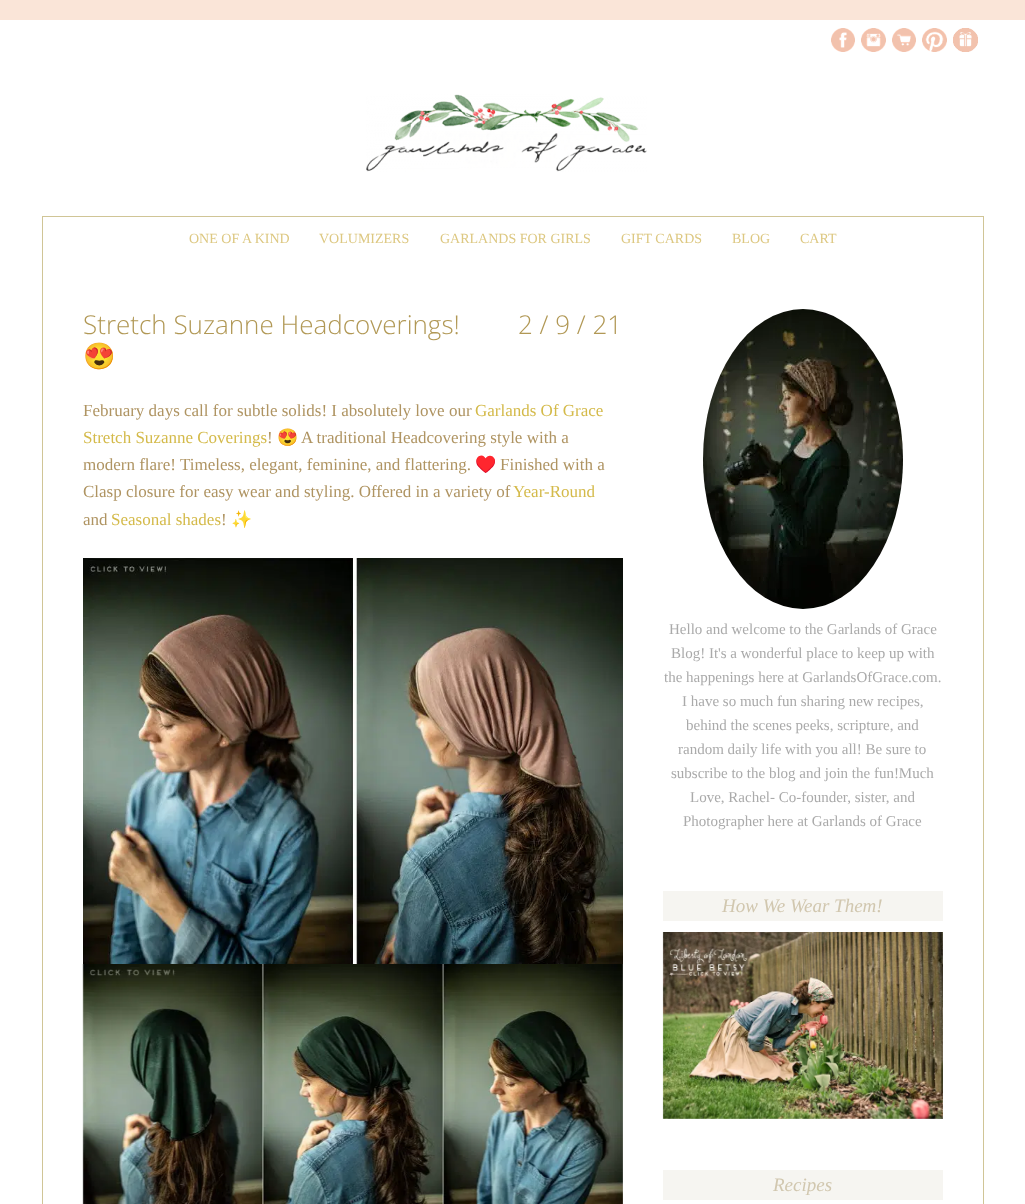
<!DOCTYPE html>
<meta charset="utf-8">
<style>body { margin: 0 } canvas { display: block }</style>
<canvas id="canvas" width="1025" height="1204"></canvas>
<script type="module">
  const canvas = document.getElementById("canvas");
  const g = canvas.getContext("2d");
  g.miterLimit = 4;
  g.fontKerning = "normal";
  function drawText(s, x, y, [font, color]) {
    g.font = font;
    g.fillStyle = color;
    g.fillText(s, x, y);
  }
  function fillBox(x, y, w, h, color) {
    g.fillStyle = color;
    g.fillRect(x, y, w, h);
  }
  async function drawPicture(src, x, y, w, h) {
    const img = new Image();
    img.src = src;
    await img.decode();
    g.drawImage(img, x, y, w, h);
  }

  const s1 = ["14px Liberation Serif", "#DDC882"];
  const s2 = ["300 26px Open Sans", "#B19855"];
  const s3 = ["26px Noto Color Emoji", "#B19855"];
  const s4 = ["17px Liberation Serif", "#AF9462"];
  const s5 = ["17px Liberation Serif", "#D4BA4A"];
  const s6 = ["17px Noto Color Emoji", "#AF9462"];
  const s7 = ["15px Liberation Serif", "#AAAAAA"];
  const s8 = ["italic 19px Liberation Serif", "#D1C7AF"];

  fillBox(0, 0, 1025, 1204, "#FFFFFF");
  fillBox(0, 0, 1025, 20, "#FAE5D8");
  await drawPicture("pic1.png", 831, 28, 24, 24);
  await drawPicture("pic2.png", 861, 28, 25, 24);
  await drawPicture("pic3.png", 892, 28, 24, 24);
  await drawPicture("pic4.png", 922, 28, 25, 24);
  await drawPicture("pic5.png", 953, 28, 25, 24);
  await drawPicture("pic6.png", 366, 94, 281, 78);
  g.strokeStyle = "#D0C596";
  g.strokeRect(42.5, 216.5, 941, 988);
  drawText("ONE OF A KIND", 189, 243, s1);
  drawText("VOLUMIZERS", 319, 243, s1);
  drawText("GARLANDS FOR GIRLS", 440, 243, s1);
  drawText("GIFT CARDS", 621, 243, s1);
  drawText("BLOG", 732, 243, s1);
  drawText("CART", 800, 243, s1);
  drawText("Stretch Suzanne Headcoverings!", 83, 334, s2);
  drawText("😍", 83, 365, s3);
  drawText("2 / 9 / 21", 518, 334, s2);
  drawText("February days call for subtle solids! I absolutely love our", 83, 416, s4);
  drawText("Garlands Of Grace", 475, 416, s5);
  drawText("Stretch Suzanne Coverings", 83, 443, s5);
  drawText("!", 267, 443, s4);
  drawText("😍", 277, 443, s6);
  drawText("A traditional Headcovering style with a", 301, 443, s4);
  drawText("modern flare! Timeless, elegant, feminine, and flattering.", 83, 470, s4);
  drawText("♥️", 475, 470, s6);
  drawText("Finished with a", 500, 470, s4);
  drawText("Clasp closure for easy wear and styling. Offered in a variety of", 83, 497, s4);
  drawText("Year-Round", 513, 497, s5);
  drawText("and", 83, 525, s4);
  drawText("Seasonal shades", 111, 525, s5);
  drawText("!", 221, 525, s4);
  drawText("✨", 231, 525, s6);
  await drawPicture("pic7.png", 83, 558, 540, 406);
  await drawPicture("pic8.png", 82, 964, 541, 240);
  await drawPicture("pic9.png", 703, 309, 200, 300);
  drawText("Hello and welcome to the Garlands of Grace", 669, 634, s7);
  drawText("Blog! It's a wonderful place to keep up with", 671, 658, s7);
  drawText("the happenings here at GarlandsOfGrace.com.", 664, 682, s7);
  drawText("I have so much fun sharing new recipes,", 682, 706, s7);
  drawText("behind the scenes peeks, scripture, and", 686, 730, s7);
  drawText("random daily life with you all! Be sure to", 678, 754, s7);
  drawText("subscribe to the blog and join the fun!Much", 671, 778, s7);
  drawText("Love, Rachel- Co-founder, sister, and", 690, 802, s7);
  drawText("Photographer here at Garlands of Grace", 683, 826, s7);
  fillBox(663, 891, 280, 30, "#F6F5F1");
  drawText("How We Wear Them!", 722, 912, s8);
  await drawPicture("pic10.png", 662, 932, 281, 187);
  fillBox(663, 1170, 280, 30, "#F6F5F1");
  drawText("Recipes", 773, 1191, s8);
</script>
